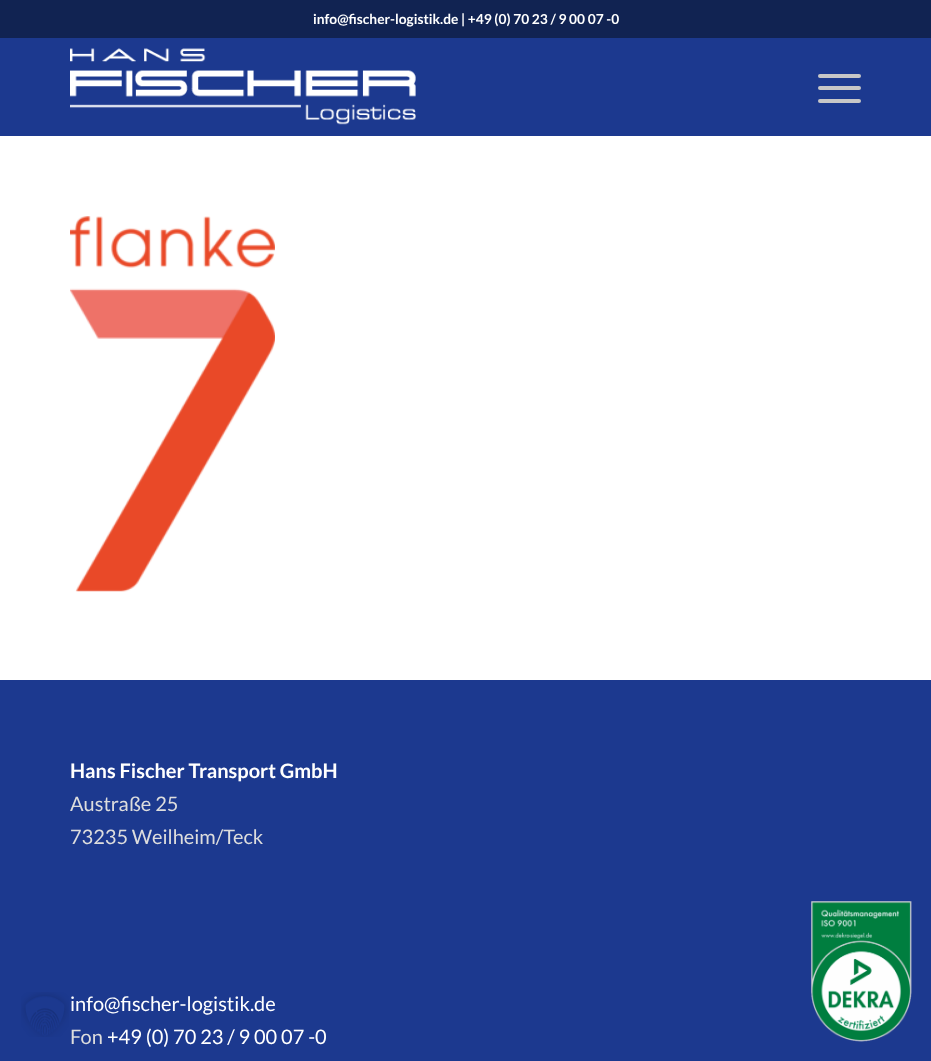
<!DOCTYPE html>
<meta charset="utf-8">
<style>body { margin: 0 } canvas { display: block }</style>
<canvas id="canvas" width="931" height="1061"></canvas>
<script type="module">
  const canvas = document.getElementById("canvas");
  const g = canvas.getContext("2d");
  g.miterLimit = 4;
  g.fontKerning = "normal";
  function drawText(s, x, y, [font, color]) {
    g.font = font;
    g.fillStyle = color;
    g.fillText(s, x, y);
  }
  function fillBox(x, y, w, h, color) {
    g.fillStyle = color;
    g.fillRect(x, y, w, h);
  }
  function fillRounded(x, y, w, h, r, color) {
    g.fillStyle = color;
    g.beginPath();
    g.roundRect(x, y, w, h, r);
    g.fill();
  }
  async function drawPicture(src, x, y, w, h) {
    const img = new Image();
    img.src = src;
    await img.decode();
    g.drawImage(img, x, y, w, h);
  }

  const s1 = ["bold 13.75px Lato", "#FFFFFF"];
  const s2 = ["bold 20px Lato", "#FFFFFF"];
  const s3 = ["20px Lato", "#DDDDDD"];
  const s4 = ["20px Lato", "#FFFFFF"];

  fillBox(0, 0, 931, 1061, "#1C398F");
  await drawPicture("pic1.png", 21, 992, 48, 45);
  fillBox(0, 0, 931, 38, "#112352");
  drawText("info@fischer-logistik.de | +49 (0) 70 23 / 9 00 07 -0", 313, 24, s1);
  await drawPicture("pic2.png", 70, 48, 346, 77);
  fillRounded(818, 86, 43, 4, 2, "#C7C7C7");
  fillRounded(818, 74, 43, 4, 2, "#C7C7C7");
  fillRounded(818, 99, 43, 4, 2, "#C7C7C7");
  fillBox(0, 136, 931, 544, "#FFFFFF");
  await drawPicture("pic3.png", 70, 216, 205, 376);
  drawText("Hans Fischer Transport GmbH", 70, 778, s2);
  drawText("Austraße 25", 70, 811, s3);
  drawText("73235 Weilheim/Teck", 70, 844, s3);
  drawText("info@fischer-logistik.de", 70, 1011, s4);
  drawText("Fon", 70, 1044, s3);
  drawText("+49 (0) 70 23 / 9 00 07 -0", 107, 1044, s4);
  await drawPicture("pic4.png", 811, 901, 101, 141);
</script>
